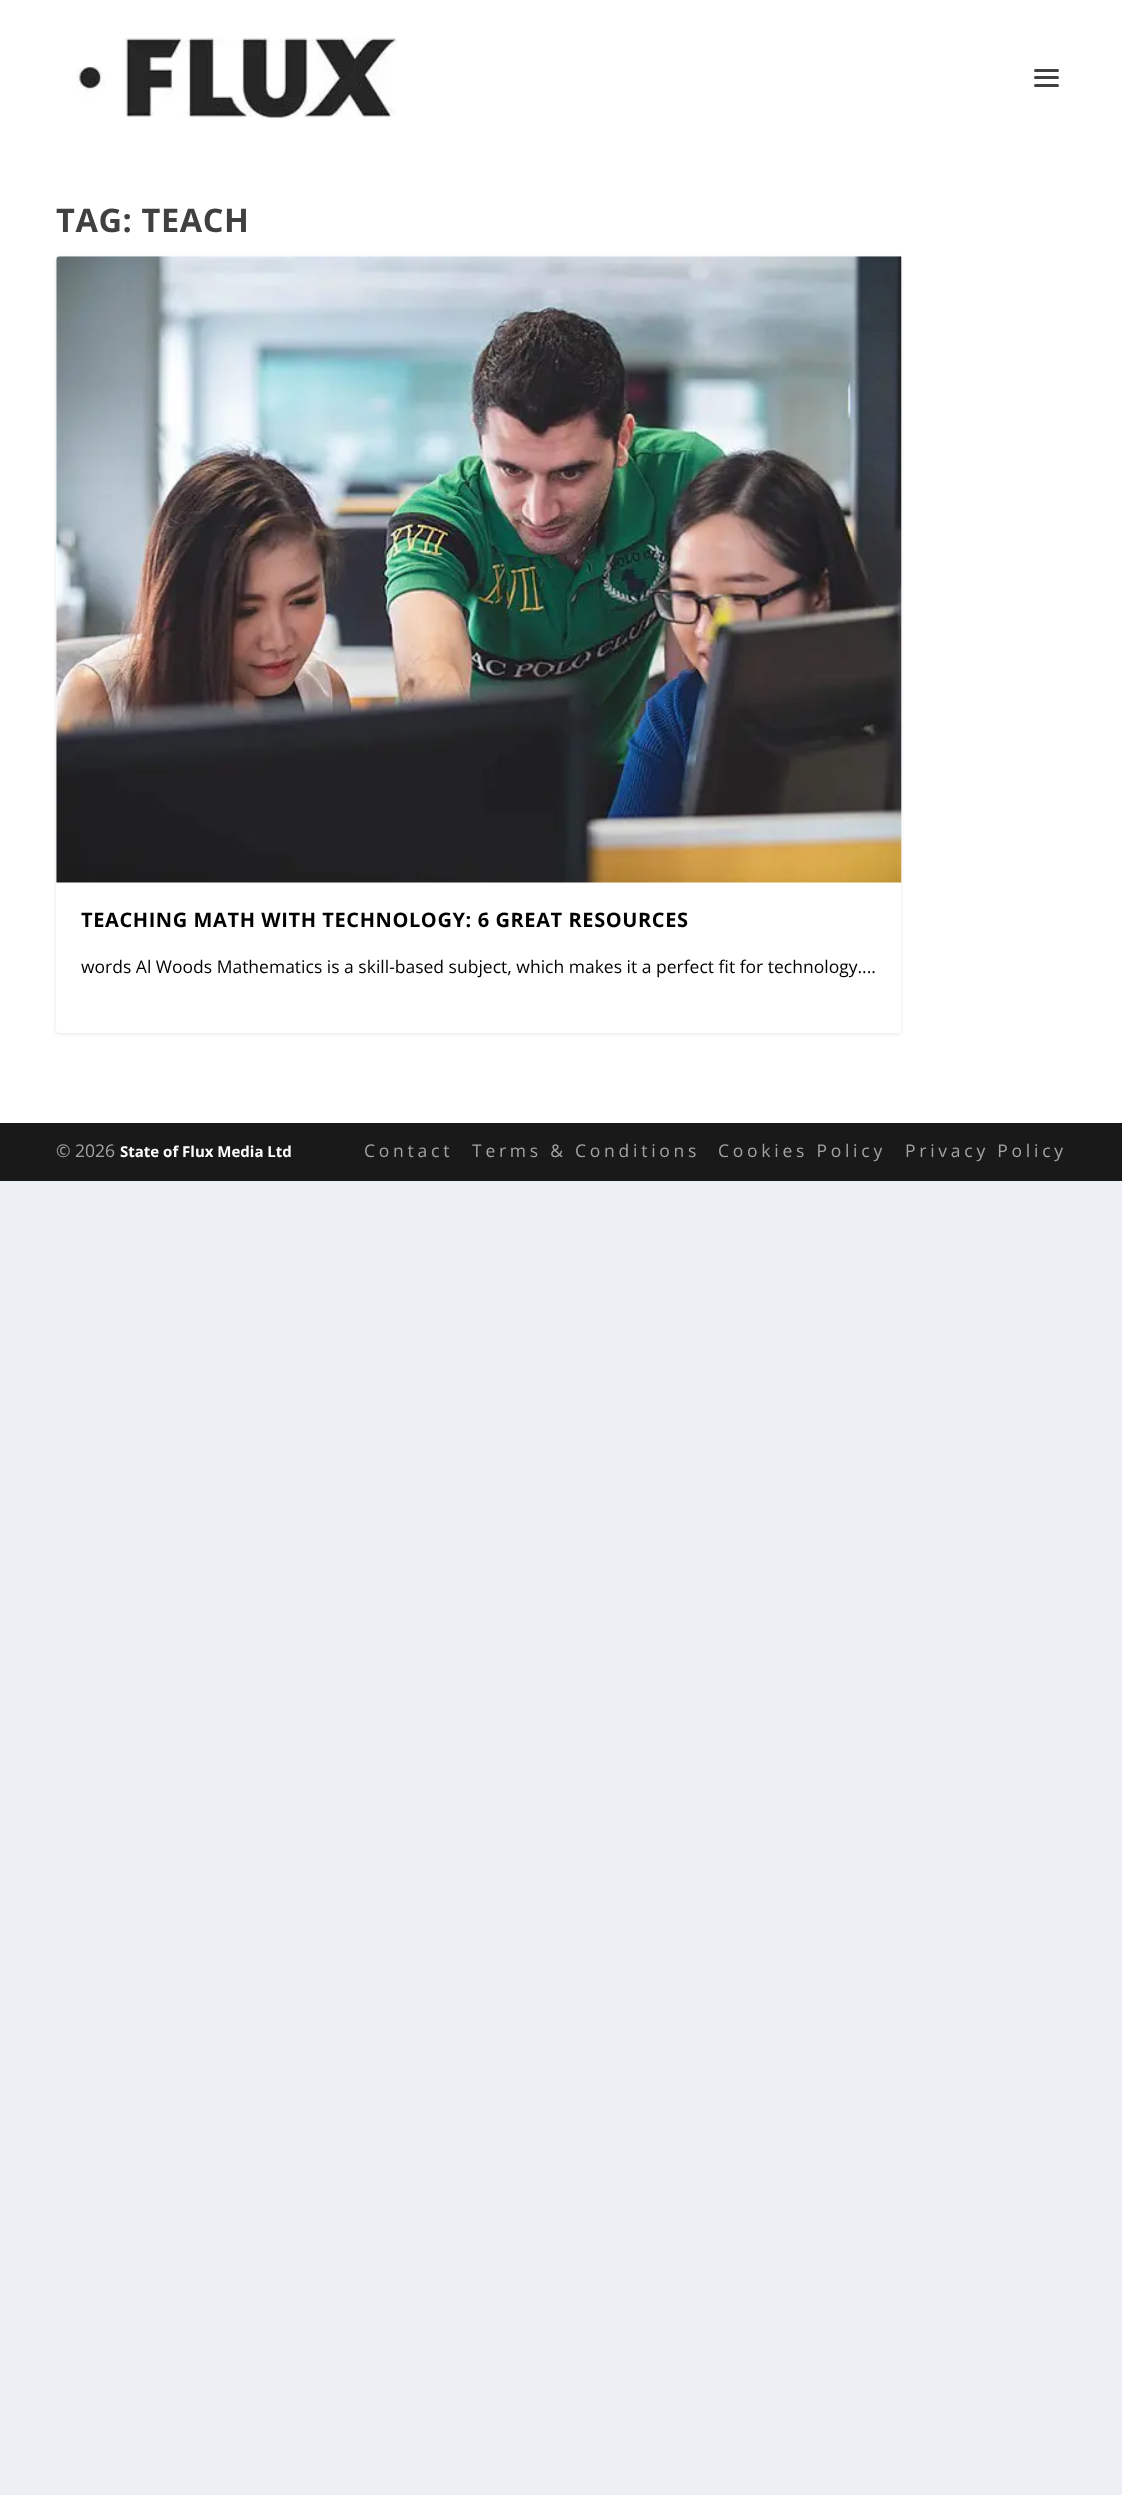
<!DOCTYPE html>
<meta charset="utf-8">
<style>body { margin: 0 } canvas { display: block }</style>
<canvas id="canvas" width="1122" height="2495"></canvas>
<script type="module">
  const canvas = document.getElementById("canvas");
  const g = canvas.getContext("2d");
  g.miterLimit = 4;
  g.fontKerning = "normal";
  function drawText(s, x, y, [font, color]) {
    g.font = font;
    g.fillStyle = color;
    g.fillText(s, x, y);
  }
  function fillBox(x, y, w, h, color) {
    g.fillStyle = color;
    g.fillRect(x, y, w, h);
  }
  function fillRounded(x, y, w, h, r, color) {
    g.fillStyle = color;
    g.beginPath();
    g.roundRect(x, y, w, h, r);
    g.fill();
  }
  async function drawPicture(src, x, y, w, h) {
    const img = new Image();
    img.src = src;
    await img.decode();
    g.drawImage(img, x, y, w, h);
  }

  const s1 = ["bold 32.5px Open Sans", "#404040"];
  const s2 = ["bold 20px Open Sans", "#000000"];
  const s3 = ["17.5px Open Sans", "#000000"];
  const s4 = ["17.5px Open Sans", "#A3A3A3"];
  const s5 = ["bold 15px Open Sans", "#FFFFFF"];

  fillBox(0, 0, 1122, 2495, "#ECF0F5");
  fillBox(0, 0, 1122, 1123, "#FFFFFF");
  await drawPicture("pic1.png", 76, 37, 321, 81);
  fillRounded(1034, 69, 25, 3, 1.5, "#404040");
  fillRounded(1034, 76, 25, 3, 1.5, "#404040");
  fillRounded(1034, 84, 25, 3, 1.5, "#404040");
  g.letterSpacing = "0.6px";
  drawText("TAG: TEACH", 56, 232, s1);
  g.fillStyle = "rgba(0, 0, 0, 0.1)";
  g.filter = "blur(2px)";
  g.beginPath();
  g.roundRect(56, 258, 845, 776, 4);
  g.fill();
  g.filter = "none";
  fillRounded(56, 256, 845, 777, 4, "#FFFFFF");
  await drawPicture("pic2.png", 56, 256, 846, 627);
  drawText("TEACHING MATH WITH TECHNOLOGY: 6 GREAT RESOURCES", 81, 927, s2);
  g.letterSpacing = "0px";
  drawText("words Al Woods Mathematics is a skill-based subject, which makes it a perfect fit for technology....", 81, 973, s3);
  fillBox(0, 1123, 1122, 58, "#191919");
  drawText("© 2026", 56, 1157, s4);
  drawText("State of Flux Media Ltd", 120, 1157, s5);
  g.letterSpacing = "3.75px";
  drawText("Contact", 364, 1157, s4);
  drawText("Terms & Conditions", 472, 1157, s4);
  drawText("Cookies Policy", 718, 1157, s4);
  drawText("Privacy Policy", 905, 1157, s4);
</script>
